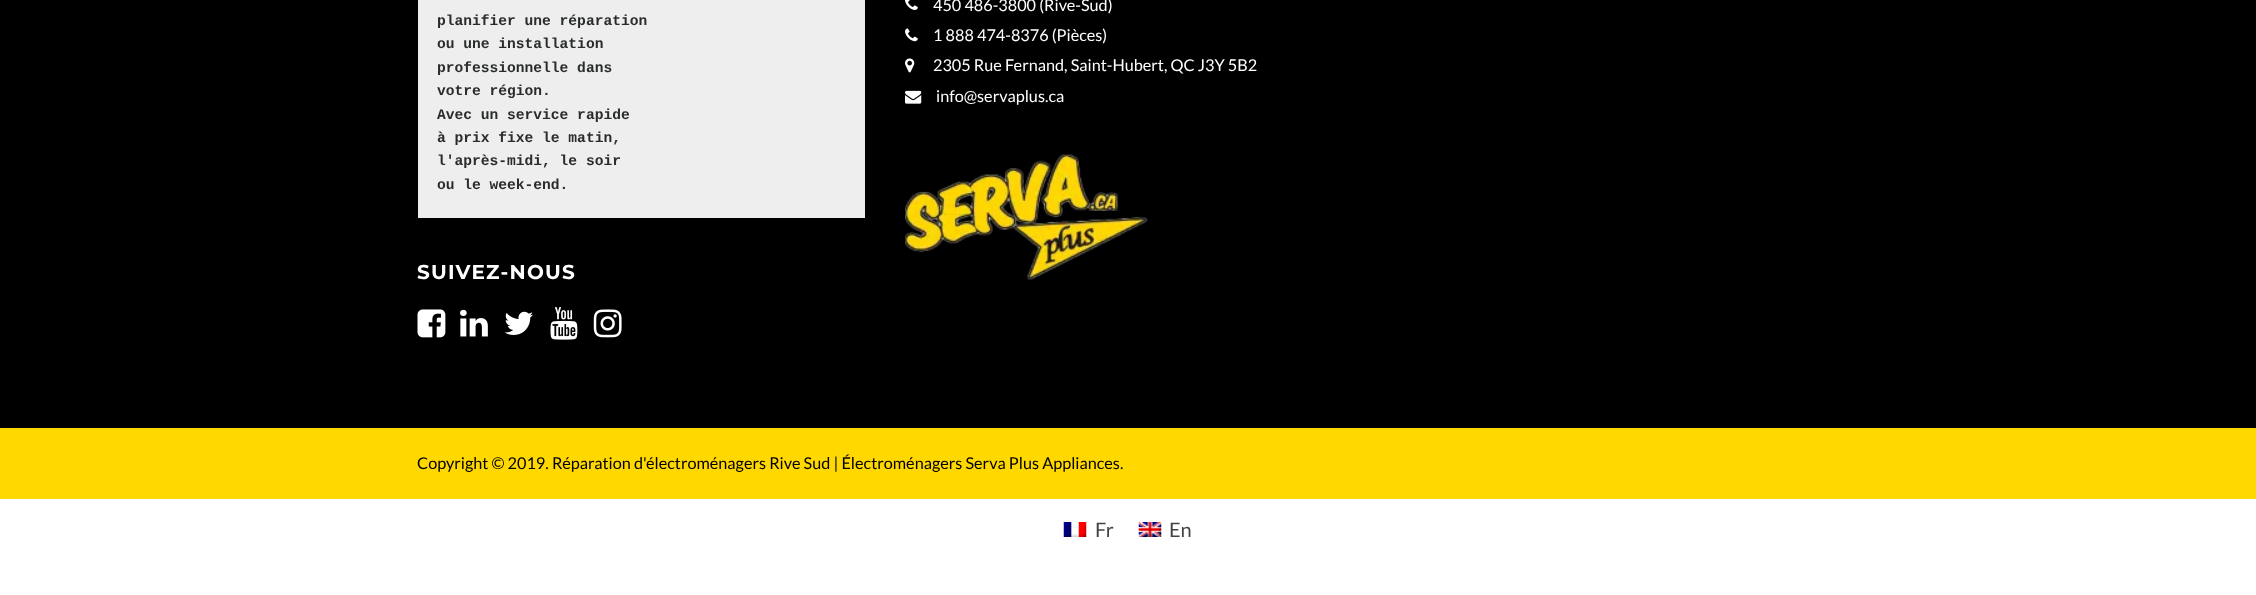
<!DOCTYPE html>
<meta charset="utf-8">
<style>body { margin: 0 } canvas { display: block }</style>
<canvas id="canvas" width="2256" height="595"></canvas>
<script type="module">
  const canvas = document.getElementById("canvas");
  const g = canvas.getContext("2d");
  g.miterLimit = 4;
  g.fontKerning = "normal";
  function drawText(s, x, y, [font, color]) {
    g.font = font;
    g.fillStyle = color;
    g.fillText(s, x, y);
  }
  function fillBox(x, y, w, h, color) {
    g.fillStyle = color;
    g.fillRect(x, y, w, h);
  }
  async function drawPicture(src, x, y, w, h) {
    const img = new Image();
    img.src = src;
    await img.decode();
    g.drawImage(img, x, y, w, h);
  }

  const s1 = ["bold 14.6px Liberation Mono", "#292B2C"];
  const s2 = ["bold 20px Montserrat", "#FFFFFF"];
  const s3 = ["16.25px Lato", "#FFFFFF"];
  const s4 = ["16.25px Lato", "#000000"];
  const s5 = ["20px Lato", "#444444"];

  fillBox(0, 0, 2256, 595, "#FFFFFF");
  fillBox(0, 0, 2256, 428, "#000000");
  fillBox(418, 0, 447, 218, "#EEEEEE");
  drawText("planifier une réparation", 437, 25, s1);
  drawText("ou une installation", 437, 48, s1);
  drawText("professionnelle dans", 437, 72, s1);
  drawText("votre région.", 437, 95, s1);
  drawText("Avec un service rapide", 437, 119, s1);
  drawText("à prix fixe le matin,", 437, 142, s1);
  drawText("l'après-midi, le soir", 437, 165, s1);
  drawText("ou le week-end.", 437, 189, s1);
  g.letterSpacing = "1.25px";
  drawText("SUIVEZ-NOUS", 417, 279, s2);
  await drawPicture("pic1.png", 417, 309, 29, 29);
  await drawPicture("pic2.png", 460, 309, 28, 28);
  await drawPicture("pic3.png", 504, 311, 29, 24);
  await drawPicture("pic4.png", 550, 307, 28, 33);
  await drawPicture("pic5.png", 593, 309, 29, 29);
  await drawPicture("pic6.png", 905, 0, 13, 10);
  g.letterSpacing = "0px";
  drawText("450 486-3800 (Rive-Sud)", 933, 11, s3);
  await drawPicture("pic7.png", 905, 28, 13, 14);
  drawText("1 888 474-8376 (Pièces)", 933, 41, s3);
  await drawPicture("pic8.png", 905, 58, 10, 15);
  drawText("2305 Rue Fernand, Saint-Hubert, QC J3Y 5B2", 933, 71, s3);
  await drawPicture("pic9.png", 905, 90, 17, 14);
  drawText("info@servaplus.ca", 936, 102, s3);
  await drawPicture("pic10.png", 905, 154, 243, 126);
  fillBox(0, 428, 2256, 71, "#FFD800");
  drawText("Copyright © 2019. Réparation d'électroménagers Rive Sud | Électroménagers Serva Plus Appliances.", 417, 469, s4);
  await drawPicture("pic11.png", 1063, 522, 24, 15);
  drawText("Fr", 1095, 537, s5);
  await drawPicture("pic12.png", 1138, 522, 24, 15);
  drawText("En", 1169, 537, s5);
</script>
